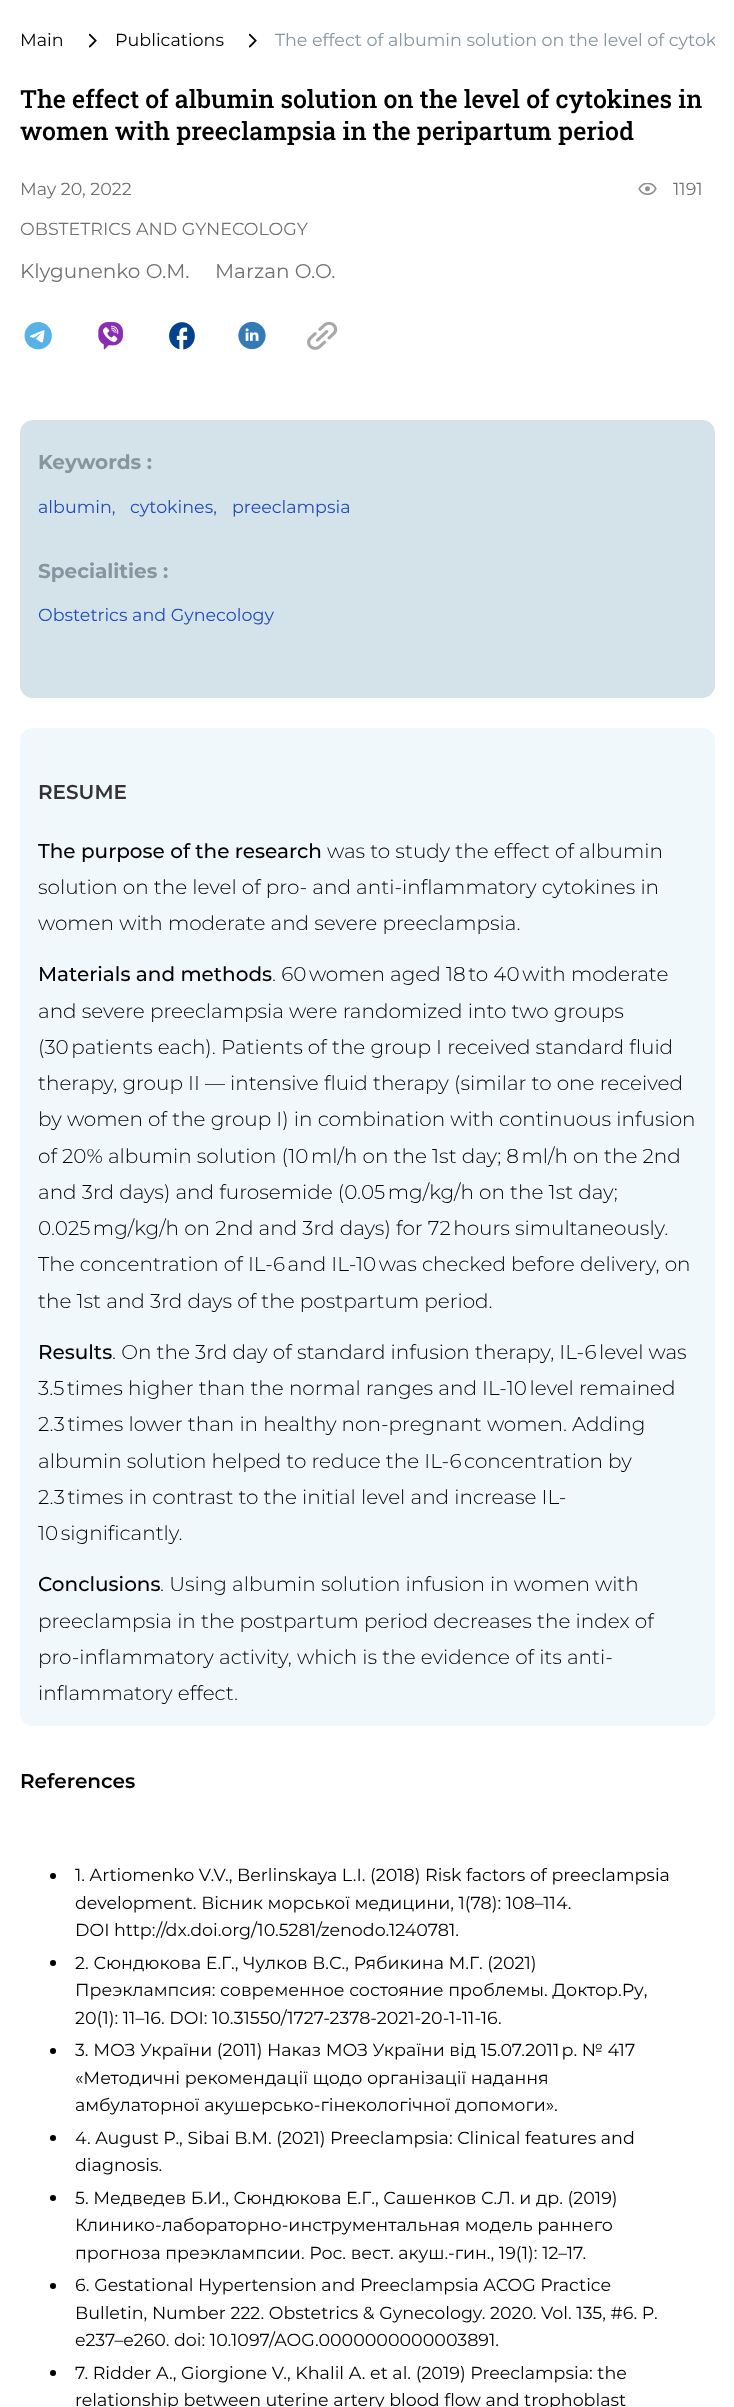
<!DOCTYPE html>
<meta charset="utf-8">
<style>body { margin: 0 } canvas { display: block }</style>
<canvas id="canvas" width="734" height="2407"></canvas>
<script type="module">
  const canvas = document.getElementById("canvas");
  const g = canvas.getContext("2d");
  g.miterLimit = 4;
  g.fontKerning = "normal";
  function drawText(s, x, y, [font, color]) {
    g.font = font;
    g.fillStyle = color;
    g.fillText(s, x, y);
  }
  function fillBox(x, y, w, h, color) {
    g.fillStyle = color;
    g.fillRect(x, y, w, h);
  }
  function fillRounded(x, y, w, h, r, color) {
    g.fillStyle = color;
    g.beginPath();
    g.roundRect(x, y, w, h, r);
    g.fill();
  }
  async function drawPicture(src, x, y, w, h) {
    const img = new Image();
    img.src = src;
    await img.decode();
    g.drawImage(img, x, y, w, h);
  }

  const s1 = ["17.5px Montserrat", "#000000"];
  const s2 = ["17.5px Montserrat", "#86959F"];
  const s3 = ["500 25px Roboto Slab", "#000000"];
  const s4 = ["17.5px Montserrat", "#717171"];
  const s5 = ["20px Montserrat", "#717171"];
  const s6 = ["bold 20px Montserrat", "#86959F"];
  const s7 = ["17.5px Montserrat", "#214BB7"];
  const s8 = ["600 20px Montserrat", "#333333"];
  const s9 = ["500 20px Montserrat", "#000000"];
  const s10 = ["300 20px Montserrat", "#000000"];
  const s11 = ["600 20px Montserrat", "#000000"];

  fillBox(0, 0, 734, 2407, "#FFFFFF");
  drawText("Main", 20, 46, s1);
  await drawPicture("pic1.png", 89, 33, 8, 15);
  drawText("Publications", 115, 46, s1);
  await drawPicture("pic1.png", 249, 33, 8, 15);
  g.save();
  g.beginPath();
  g.rect(20, 30, 695, 21);
  g.clip();
  drawText("The effect of albumin solution on the level of cytok", 275, 46, s2);
  g.restore();
  drawText("The effect of albumin solution on the level of cytokines in", 20, 108, s3);
  drawText("women with preeclampsia in the peripartum period", 20, 140, s3);
  drawText("May 20, 2022", 20, 195, s4);
  await drawPicture("pic2.png", 638, 183, 19, 12);
  drawText("1191", 673, 195, s4);
  drawText("OBSTETRICS AND GYNECOLOGY", 20, 235, s4);
  drawText("Klygunenko O.M.", 20, 278, s5);
  drawText("Marzan O.O.", 215, 278, s5);
  await drawPicture("pic3.png", 24, 322, 28, 28);
  await drawPicture("pic4.png", 98, 322, 25, 28);
  await drawPicture("pic5.png", 169, 322, 26, 28);
  await drawPicture("pic6.png", 238, 321, 28, 29);
  await drawPicture("pic7.png", 307, 321, 31, 29);
  fillRounded(20, 420, 695, 278, 13, "#D4E3EA");
  drawText("Keywords :", 38, 469, s6);
  drawText("albumin,", 38, 513, s7);
  drawText("cytokines,", 130, 513, s7);
  drawText("preeclampsia", 232, 513, s7);
  drawText("Specialities :", 38, 578, s6);
  drawText("Obstetrics and Gynecology", 38, 621, s7);
  fillRounded(20, 728, 695, 998, 13, "#F1F8FB");
  drawText("RESUME", 38, 799, s8);
  drawText("The purpose of the research", 38, 858, s9);
  drawText("was to study the effect of albumin", 327, 858, s10);
  drawText("solution on the level of pro- and anti-inflammatory cytokines in", 38, 894, s10);
  drawText("women with moderate and severe preeclampsia.", 38, 930, s10);
  drawText("Materials and methods", 38, 981, s9);
  drawText(". 60 women aged 18 to 40 with moderate", 272, 981, s10);
  drawText("and severe preeclampsia were randomized into two groups", 38, 1018, s10);
  drawText("(30 patients each). Patients of the group I received standard fluid", 38, 1054, s10);
  drawText("therapy, group II — intensive fluid therapy (similar to one received", 38, 1090, s10);
  drawText("by women of the group I) in combination with continuous infusion", 38, 1126, s10);
  drawText("of 20% albumin solution (10 ml/h on the 1st day; 8 ml/h on the 2nd", 38, 1163, s10);
  drawText("and 3rd days) and furosemide (0.05 mg/kg/h on the 1st day;", 38, 1199, s10);
  drawText("0.025 mg/kg/h on 2nd and 3rd days) for 72 hours simultaneously.", 38, 1235, s10);
  drawText("The concentration of IL-6 and IL-10 was checked before delivery, on", 38, 1271, s10);
  drawText("the 1st and 3rd days of the postpartum period.", 38, 1308, s10);
  drawText("Results", 38, 1359, s9);
  drawText(". On the 3rd day of standard infusion therapy, IL-6 level was", 112, 1359, s10);
  drawText("3.5 times higher than the normal ranges and IL-10 level remained", 38, 1395, s10);
  drawText("2.3 times lower than in healthy non-pregnant women. Adding", 38, 1431, s10);
  drawText("albumin solution helped to reduce the IL-6 concentration by", 38, 1468, s10);
  drawText("2.3 times in contrast to the initial level and increase IL-", 38, 1504, s10);
  drawText("10 significantly.", 38, 1540, s10);
  drawText("Conclusions", 38, 1591, s9);
  drawText(". Using albumin solution infusion in women with", 160, 1591, s10);
  drawText("preeclampsia in the postpartum period decreases the index of", 38, 1628, s10);
  drawText("pro-inflammatory activity, which is the evidence of its anti-", 38, 1664, s10);
  drawText("inflammatory effect.", 38, 1700, s10);
  drawText("References", 20, 1788, s11);
  g.beginPath();
  g.arc(53, 1876, 3, 0, Math.PI * 2);
  g.fill();
  drawText("1. Artiomenko V.V., Berlinskaya L.I. (2018) Risk factors of preeclampsia", 75, 1881, s1);
  drawText("development. Вісник морської медицини, 1(78): 108–114.", 75, 1909, s1);
  drawText("DOI http://dx.doi.org/10.5281/zenodo.1240781.", 75, 1936, s1);
  g.beginPath();
  g.arc(53, 1963, 3, 0, Math.PI * 2);
  g.fill();
  drawText("2. Сюндюкова Е.Г., Чулков В.С., Рябикина М.Г. (2021)", 75, 1969, s1);
  drawText("Преэклампсия: современное состояние проблемы. Доктор.Ру,", 75, 1996, s1);
  drawText("20(1): 11–16. DOI: 10.31550/1727-2378-2021-20-1-11-16.", 75, 2024, s1);
  g.beginPath();
  g.arc(53, 2051, 3, 0, Math.PI * 2);
  g.fill();
  drawText("3. МОЗ України (2011) Наказ МОЗ України від 15.07.2011 р. № 417", 75, 2056, s1);
  drawText("«Методичні рекомендації щодо організації надання", 75, 2084, s1);
  drawText("амбулаторної акушерсько-гінекологічної допомоги».", 75, 2111, s1);
  g.beginPath();
  g.arc(53, 2138, 3, 0, Math.PI * 2);
  g.fill();
  drawText("4. August P., Sibai B.M. (2021) Preeclampsia: Clinical features and", 75, 2144, s1);
  drawText("diagnosis.", 75, 2171, s1);
  g.beginPath();
  g.arc(53, 2198, 3, 0, Math.PI * 2);
  g.fill();
  drawText("5. Медведев Б.И., Сюндюкова Е.Г., Сашенков С.Л. и др. (2019)", 75, 2204, s1);
  drawText("Клинико-лабораторно-инструментальная модель раннего", 75, 2231, s1);
  drawText("прогноза преэклампсии. Рос. вест. акуш.-гин., 19(1): 12–17.", 75, 2259, s1);
  g.beginPath();
  g.arc(53, 2286, 3, 0, Math.PI * 2);
  g.fill();
  drawText("6. Gestational Hypertension and Preeclampsia ACOG Practice", 75, 2291, s1);
  drawText("Bulletin, Number 222. Obstetrics & Gynecology. 2020. Vol. 135, #6. P.", 75, 2319, s1);
  drawText("e237–e260. doi: 10.1097/AOG.0000000000003891.", 75, 2346, s1);
  g.beginPath();
  g.arc(53, 2373, 3, 0, Math.PI * 2);
  g.fill();
  drawText("7. Ridder A., Giorgione V., Khalil A. et al. (2019) Preeclampsia: the", 75, 2379, s1);
  drawText("relationship between uterine artery blood flow and trophoblast", 75, 2406, s1);
</script>
